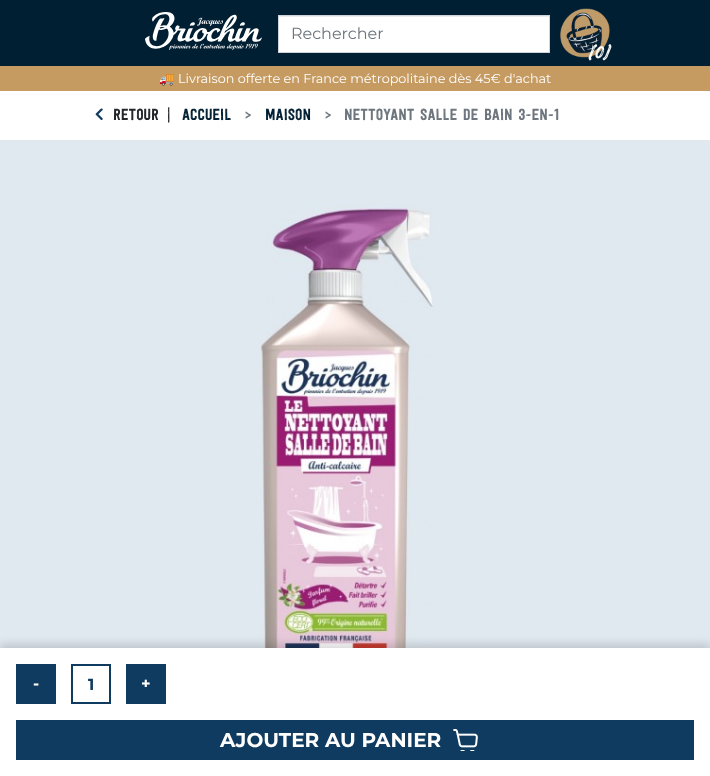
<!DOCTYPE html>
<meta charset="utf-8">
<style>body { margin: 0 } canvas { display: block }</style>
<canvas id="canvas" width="710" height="776"></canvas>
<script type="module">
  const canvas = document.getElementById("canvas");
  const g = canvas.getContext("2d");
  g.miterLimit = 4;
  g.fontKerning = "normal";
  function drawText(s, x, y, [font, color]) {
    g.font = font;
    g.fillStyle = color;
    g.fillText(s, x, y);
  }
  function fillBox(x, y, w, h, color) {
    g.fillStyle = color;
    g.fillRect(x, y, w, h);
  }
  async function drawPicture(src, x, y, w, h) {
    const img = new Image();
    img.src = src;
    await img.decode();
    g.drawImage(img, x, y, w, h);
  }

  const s1 = ["16px Montserrat", "#6C757D"];
  const s2 = ["600 16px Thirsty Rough", "#FFFFFF"];
  const s3 = ["12.8px Noto Color Emoji", "#FFFFFF"];
  const s4 = ["12.8px Montserrat", "#FFFFFF"];
  const s5 = ["16px 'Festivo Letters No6'", "#212529"];
  const s6 = ["16px 'Festivo Letters No6'", "#001F33"];
  const s7 = ["16px 'Festivo Letters No6'", "#6C757D"];
  const s8 = ["bold 16px Montserrat", "#FFFFFF"];
  const s9 = ["bold 16px Montserrat", "#103B60"];
  const s10 = ["bold 20px Montserrat", "#FFFFFF"];

  fillBox(0, 0, 710, 776, "#FFFFFF");
  fillBox(0, 0, 710, 66, "#001F33");
  await drawPicture("pic1.png", 145, 12, 117, 38);
  fillBox(279, 17, 270, 35, "#FFFFFF");
  fillBox(279, 16, 270, 1, "#ECECEC");
  g.strokeStyle = "#CED4DA";
  g.strokeRect(278.5, 15.5, 271, 37);
  drawText("Rechercher", 291, 39, s1);
  await drawPicture("pic2.png", 560, 8, 50, 50);
  drawText("(0)", 589, 58, s2);
  fillBox(0, 66, 710, 25, "#C69B62");
  drawText("🚚", 159, 83, s3);
  drawText("Livraison offerte en France métropolitaine dès 45€ d'achat", 178, 83, s4);
  await drawPicture("pic3.png", 95, 108, 8, 12);
  drawText("RETOUR", 113, 120, s5);
  drawText("|", 167, 120, s5);
  drawText("ACCUEIL", 182, 120, s6);
  drawText(">", 245, 120, s7);
  drawText("MAISON", 265, 120, s6);
  drawText(">", 325, 120, s7);
  drawText("NETTOYANT SALLE DE BAIN 3-EN-1", 344, 120, s7);
  fillBox(0, 140, 710, 508, "#E0E8F0");
  await drawPicture("pic4.png", 260, 203, 173, 445);
  g.fillStyle = "rgba(0, 0, 0, 0.15)";
  g.filter = "blur(4px)";
  g.beginPath();
  g.rect(0, 644, 710, 128);
  g.fill();
  g.filter = "none";
  fillBox(0, 648, 710, 128, "#FFFFFF");
  fillBox(16, 664, 40, 40, "#103B60");
  drawText("-", 33, 689, s8);
  g.strokeStyle = "#103B60";
  g.lineWidth = 2;
  g.strokeRect(72, 665, 38, 38);
  drawText("1", 88, 690, s9);
  fillBox(126, 664, 40, 40, "#103B60");
  drawText("+", 141, 689, s8);
  fillBox(16, 720, 678, 40, "#103B60");
  drawText("AJOUTER AU PANIER", 220, 747, s10);
  await drawPicture("pic5.png", 453, 729, 25, 22);
</script>
